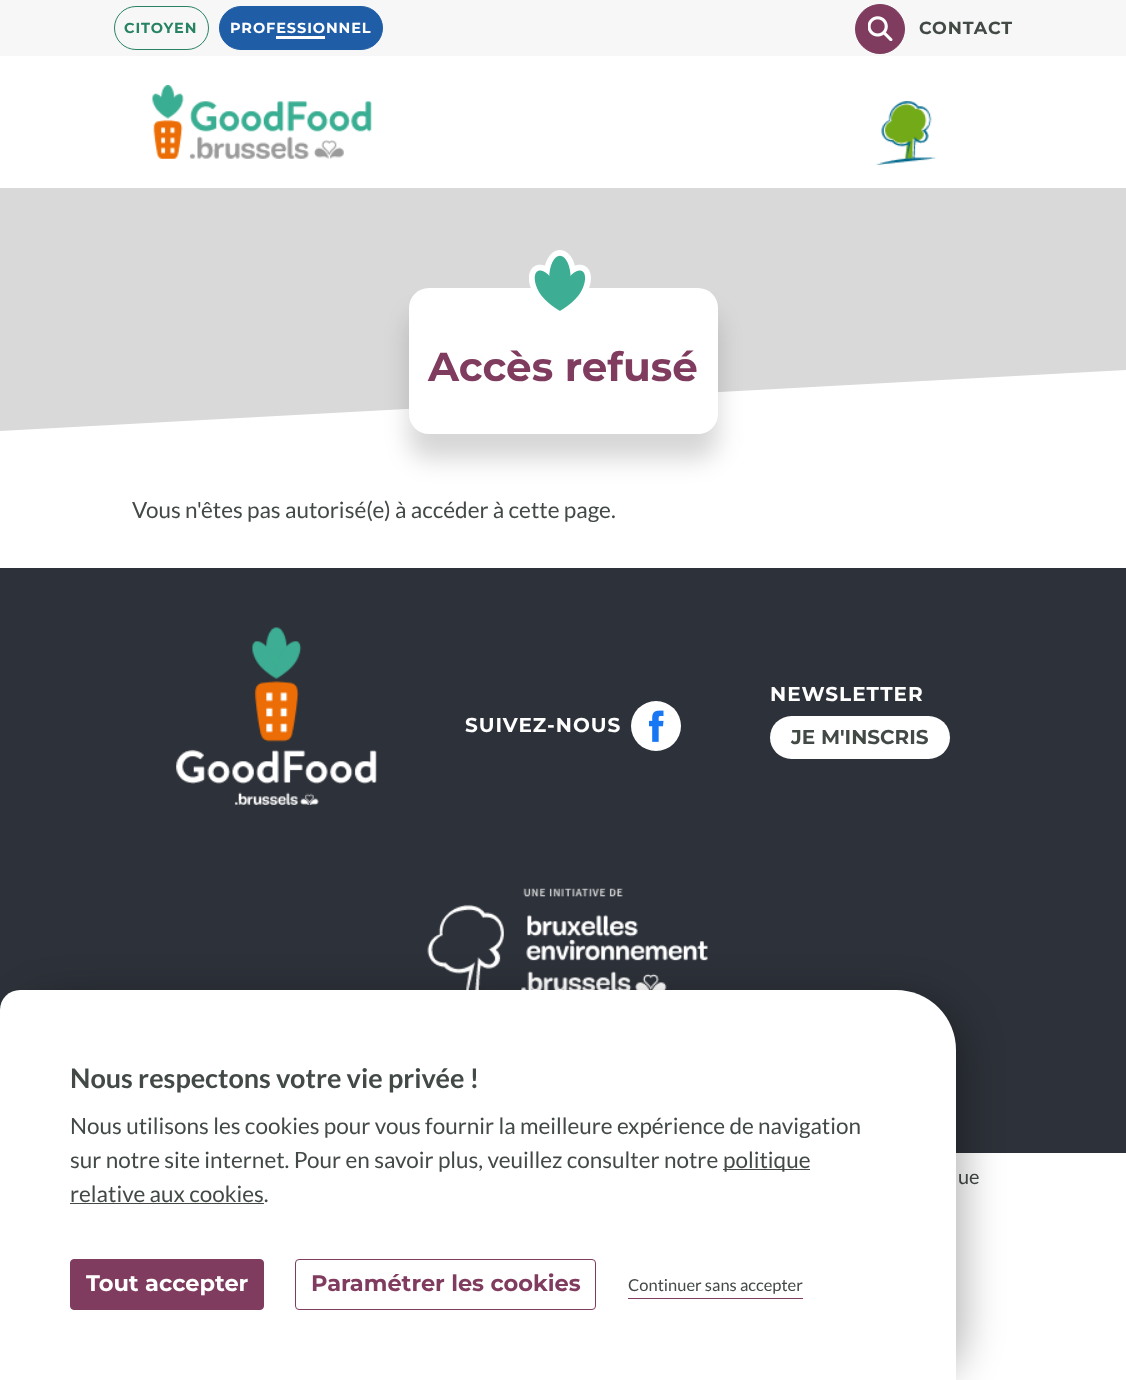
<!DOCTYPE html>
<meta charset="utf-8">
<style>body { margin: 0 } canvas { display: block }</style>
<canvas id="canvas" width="1126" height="1380"></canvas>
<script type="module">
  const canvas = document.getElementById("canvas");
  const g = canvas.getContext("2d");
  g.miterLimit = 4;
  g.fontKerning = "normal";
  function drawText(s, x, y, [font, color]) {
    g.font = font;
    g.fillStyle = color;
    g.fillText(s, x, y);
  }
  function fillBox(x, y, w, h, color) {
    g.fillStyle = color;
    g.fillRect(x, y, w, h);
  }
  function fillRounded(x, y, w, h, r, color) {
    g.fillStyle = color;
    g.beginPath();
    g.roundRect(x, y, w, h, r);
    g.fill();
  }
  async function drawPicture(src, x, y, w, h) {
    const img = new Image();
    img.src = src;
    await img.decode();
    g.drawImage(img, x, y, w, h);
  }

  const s1 = ["bold 14.5px Montserrat", "#288362"];
  const s2 = ["bold 14.5px Montserrat", "#FFFFFF"];
  const s3 = ["bold 17.5px Montserrat", "#434A46"];
  const s4 = ["bold 40.5px Montserrat", "#803C5E"];
  const s5 = ["22.5px Lato", "#434A46"];
  const s6 = ["bold 20px Montserrat", "#FFFFFF"];
  const s7 = ["bold 20px Montserrat", "#434A46"];
  const s8 = ["20px Lato", "#434A46"];
  const s9 = ["bold 27px Lato", "#434A46"];
  const s10 = ["bold 22.5px Montserrat", "#FFFFFF"];
  const s11 = ["bold 22.5px Montserrat", "#803C5E"];
  const s12 = ["16.5px Lato", "#434A46"];

  fillBox(0, 0, 1126, 1380, "#FFFFFF");
  fillBox(0, 0, 1126, 56, "#F7F7F7");
  g.beginPath();
  g.roundRect(114.5, 6.5, 94, 43, 21.5);
  g.strokeStyle = "#288362";
  g.stroke();
  g.letterSpacing = "0.9px";
  drawText("CITOYEN", 124, 33, s1);
  g.fillStyle = "#1F5DA6";
  g.beginPath();
  g.roundRect(219.5, 6.5, 163, 43, 21.5);
  g.fill();
  g.strokeStyle = "#1F5DA6";
  g.stroke();
  drawText("PROFESSIONNEL", 230, 33, s2);
  fillBox(276, 36, 49, 3, "#FFFFFF");
  g.fillStyle = "#803C5E";
  g.beginPath();
  g.arc(880, 29, 24.5, 0, Math.PI * 2);
  g.fill();
  g.strokeStyle = "#803C5E";
  g.stroke();
  await drawPicture("pic1.png", 868, 16, 25, 25);
  drawText("CONTACT", 919, 34, s3);
  await drawPicture("pic2.png", 152, 85, 220, 74);
  await drawPicture("pic3.png", 876, 101, 60, 64);
  g.fillStyle = "#D9D9D9";
  g.beginPath();
  g.moveTo(0, 188);
  g.lineTo(0, 431);
  g.lineTo(1126, 370);
  g.lineTo(1126, 188);
  g.closePath();
  g.fill();
  g.fillStyle = "rgba(0, 0, 0, 0.16)";
  g.filter = "blur(12.5px)";
  g.beginPath();
  g.roundRect(409, 313, 309, 146, 20);
  g.fill();
  g.filter = "none";
  fillRounded(409, 288, 309, 146, 20, "#FFFFFF");
  await drawPicture("pic4.png", 529, 250, 62, 61);
  g.letterSpacing = "0px";
  drawText("Accès refusé", 428, 381, s4);
  drawText("Vous n'êtes pas autorisé(e) à accéder à cette page.", 132, 518, s5);
  fillBox(0, 568, 1126, 585, "#2D3139");
  await drawPicture("pic5.png", 176, 627, 201, 178);
  g.letterSpacing = "1px";
  drawText("SUIVEZ-NOUS", 465, 732, s6);
  g.beginPath();
  g.arc(656, 726, 25, 0, Math.PI * 2);
  g.fill();
  await drawPicture("pic6.png", 648, 710, 16, 32);
  drawText("NEWSLETTER", 770, 701, s6);
  fillRounded(770, 716, 180, 43, 21.5, "#FFFFFF");
  g.letterSpacing = "0px";
  drawText("JE M'INSCRIS", 791, 744, s7);
  await drawPicture("pic7.png", 427, 888, 281, 102);
  drawText("ue", 958, 1184, s8);
  g.fillStyle = "rgba(0, 0, 0, 0.3)";
  g.filter = "blur(20px)";
  g.beginPath();
  g.roundRect(6, 998, 957, 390, 60);
  g.fill();
  g.filter = "none";
  g.fillStyle = "#FFFFFF";
  g.beginPath();
  g.roundRect(0, 990, 956, 390, [20, 60, 0, 0]);
  g.fill();
  drawText("Nous respectons votre vie privée !", 70, 1088, s9);
  drawText("Nous utilisons les cookies pour vous fournir la meilleure expérience de navigation", 70, 1134, s5);
  drawText("sur notre site internet. Pour en savoir plus, veuillez consulter notre", 70, 1168, s5);
  fillBox(723, 1169, 87, 1, "#434A46");
  drawText("politique", 723, 1168, s5);
  drawText("relative aux cookies.", 70, 1202, s5);
  fillBox(70, 1203, 194, 1, "#434A46");
  g.fillStyle = "#803C5E";
  g.beginPath();
  g.roundRect(70.5, 1259.5, 193, 50, 3.5);
  g.fill();
  g.stroke();
  drawText("Tout accepter", 86, 1291, s10);
  g.beginPath();
  g.roundRect(295.5, 1259.5, 300, 50, 3.5);
  g.stroke();
  drawText("Paramétrer les cookies", 311, 1291, s11);
  fillBox(628, 1298, 175, 1, "#803C5E");
  drawText("Continuer sans accepter", 628, 1291, s12);
</script>
